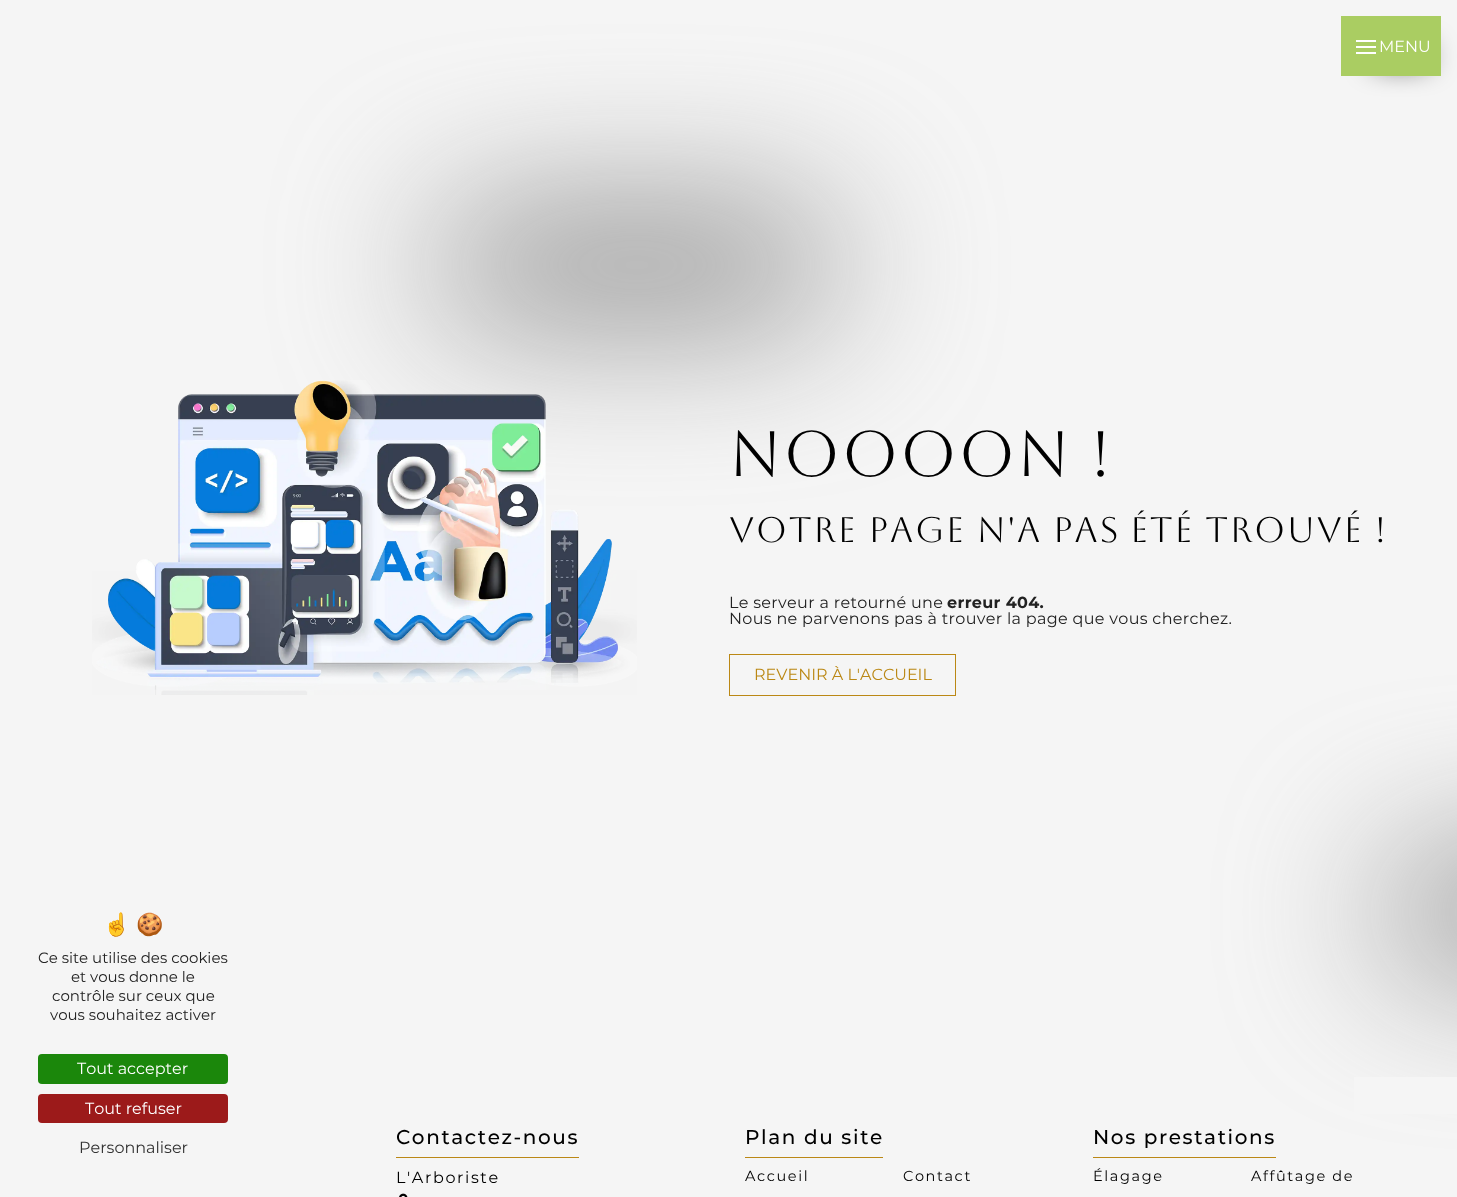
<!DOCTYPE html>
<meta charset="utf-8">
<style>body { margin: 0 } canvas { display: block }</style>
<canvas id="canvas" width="1457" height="1197"></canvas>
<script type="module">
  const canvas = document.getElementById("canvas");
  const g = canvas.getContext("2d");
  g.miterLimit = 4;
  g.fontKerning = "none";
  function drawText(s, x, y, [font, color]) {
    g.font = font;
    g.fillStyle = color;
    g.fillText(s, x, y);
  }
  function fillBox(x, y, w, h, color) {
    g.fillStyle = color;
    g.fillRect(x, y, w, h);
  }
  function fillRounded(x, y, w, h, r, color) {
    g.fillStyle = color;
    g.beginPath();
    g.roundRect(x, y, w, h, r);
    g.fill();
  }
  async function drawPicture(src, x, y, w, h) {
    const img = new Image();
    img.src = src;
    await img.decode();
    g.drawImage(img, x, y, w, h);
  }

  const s1 = ["16px Montserrat", "#FFFFFF"];
  const s2 = ["64px Aboreto", "#000000"];
  const s3 = ["35.25px Aboreto", "#000000"];
  const s4 = ["16px Montserrat", "#222222"];
  const s5 = ["bold 16px Montserrat", "#222222"];
  const s6 = ["16px Montserrat", "#BB8815"];
  const s7 = ["22px Noto Color Emoji", "#222222"];
  const s8 = ["15px Montserrat", "#222222"];
  const s9 = ["16px Montserrat", "#333333"];
  const s10 = ["500 20px Montserrat", "#000000"];
  const s11 = ["16px Montserrat", "#000000"];
  const s12 = ["14.5px Montserrat", "#000000"];

  fillBox(0, 0, 1457, 1197, "#F5F5F5");
  g.fillStyle = "#000000";
  g.filter = "blur(14.5px)";
  g.beginPath();
  g.rect(1374, 49, 54, 14);
  g.fill();
  g.filter = "none";
  fillBox(1341, 16, 100, 60, "#AACD62");
  fillBox(1356, 40, 20, 2, "#FFFFFF");
  drawText("MENU", 1379, 52, s1);
  fillBox(1356, 46, 20, 2, "#FFFFFF");
  fillBox(1356, 52, 20, 2, "#FFFFFF");
  g.fillStyle = "#7A7A7A";
  g.filter = "blur(80px)";
  g.beginPath();
  g.roundRect(437, 215, 400, 100, 50);
  g.fill();
  g.filter = "none";
  g.fillStyle = "#7B7B7B";
  g.filter = "blur(80px)";
  g.beginPath();
  g.roundRect(1384, 862, 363, 100, 50);
  g.fill();
  g.filter = "none";
  await drawPicture("pic1.png", 92, 380, 545, 315);
  g.letterSpacing = "1.6px";
  drawText("Noooon !", 729, 476, s2);
  drawText("Votre page n'a pas", 729, 542, s3);
  drawText("été trouvé !", 1130, 542, s3);
  g.letterSpacing = "0.32px";
  drawText("Le serveur a retourné une", 729, 608, s4);
  drawText("erreur 404.", 947, 608, s5);
  drawText("Nous ne parvenons pas à trouver la page que vous cherchez.", 729, 624, s4);
  g.strokeStyle = "#BB8815";
  g.strokeRect(729.5, 654.5, 226, 41);
  g.letterSpacing = "0px";
  drawText("REVENIR À L'ACCUEIL", 754, 680, s6);
  drawText("☝", 103, 932, s7);
  drawText("🍪", 136, 932, s7);
  drawText("Ce site utilise des cookies", 38, 963, s8);
  drawText("et vous donne le", 71, 982, s8);
  drawText("contrôle sur ceux que", 52, 1001, s8);
  drawText("vous souhaitez activer", 50, 1020, s8);
  fillRounded(38, 1054, 190, 30, 4, "#1B870B");
  drawText("Tout accepter", 77, 1074, s1);
  fillRounded(38, 1094, 190, 29, 4, "#9C1A1A");
  drawText("Tout refuser", 85, 1114, s1);
  drawText("Personnaliser", 79, 1153, s9);
  fillBox(1354, 1077, 103, 37, "#F5F5F5");
  fillBox(396, 1157, 183, 1, "#BB8815");
  g.letterSpacing = "1.6px";
  drawText("Contactez-nous", 396, 1144, s10);
  drawText("L'Arboriste", 396, 1183, s11);
  await drawPicture("pic2.png", 399, 1193, 9, 4);
  fillBox(745, 1157, 138, 1, "#BB8815");
  drawText("Plan du site", 745, 1144, s10);
  drawText("Accueil", 745, 1181, s12);
  drawText("Contact", 903, 1181, s12);
  fillBox(1093, 1157, 183, 1, "#BB8815");
  drawText("Nos prestations", 1093, 1144, s10);
  drawText("Élagage", 1093, 1181, s12);
  drawText("Affûtage de", 1251, 1181, s12);
</script>
